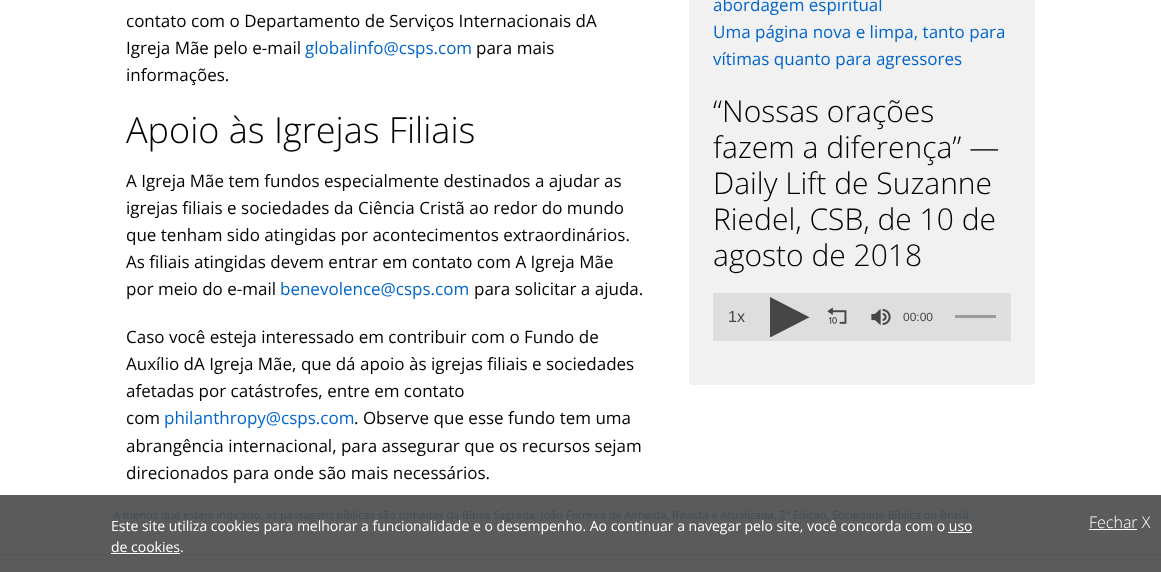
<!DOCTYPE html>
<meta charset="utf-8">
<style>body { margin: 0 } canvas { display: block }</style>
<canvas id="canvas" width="1161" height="572"></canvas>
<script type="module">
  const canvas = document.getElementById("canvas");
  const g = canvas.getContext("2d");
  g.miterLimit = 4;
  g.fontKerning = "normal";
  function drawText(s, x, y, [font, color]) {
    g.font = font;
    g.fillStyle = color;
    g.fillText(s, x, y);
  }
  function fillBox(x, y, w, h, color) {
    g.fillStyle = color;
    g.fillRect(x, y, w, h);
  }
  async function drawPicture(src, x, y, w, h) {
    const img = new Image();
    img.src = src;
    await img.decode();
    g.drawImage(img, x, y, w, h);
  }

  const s1 = ["17px Open Sans", "#000000"];
  const s2 = ["17px Open Sans", "#0265CB"];
  const s3 = ["300 36px Open Sans", "#000000"];
  const s4 = ["300 30px Open Sans", "#000000"];
  const s5 = ["16px Liberation Sans", "#464646"];
  const s6 = ["12px Liberation Sans", "#464646"];
  const s7 = ["11px Open Sans", "#424C56"];
  const s8 = ["14px Open Sans", "#FFFFFF"];
  const s9 = ["300 16px Open Sans", "#FFFFFF"];

  fillBox(0, 0, 1161, 572, "#FFFFFF");
  fillBox(0, 495, 1161, 77, "#5B5B5B");
  drawText("contato com o Departamento de Serviços Internacionais dA", 126, 27, s1);
  drawText("Igreja Mãe pelo e-mail", 126, 54, s1);
  drawText("globalinfo@csps.com", 305, 54, s2);
  drawText("para mais", 476, 54, s1);
  drawText("informações.", 126, 81, s1);
  drawText("Apoio às Igrejas Filiais", 126, 143, s3);
  drawText("A Igreja Mãe tem fundos especialmente destinados a ajudar as", 126, 187, s1);
  drawText("igrejas filiais e sociedades da Ciência Cristã ao redor do mundo", 126, 214, s1);
  drawText("que tenham sido atingidas por acontecimentos extraordinários.", 126, 241, s1);
  drawText("As filiais atingidas devem entrar em contato com A Igreja Mãe", 126, 268, s1);
  drawText("por meio do e-mail", 126, 295, s1);
  drawText("benevolence@csps.com", 280, 295, s2);
  drawText("para solicitar a ajuda.", 474, 295, s1);
  drawText("Caso você esteja interessado em contribuir com o Fundo de", 126, 343, s1);
  drawText("Auxílio dA Igreja Mãe, que dá apoio às igrejas filiais e sociedades", 126, 370, s1);
  drawText("afetadas por catástrofes, entre em contato", 126, 397, s1);
  drawText("com", 126, 424, s1);
  drawText("philanthropy@csps.com", 164, 424, s2);
  drawText(". Observe que esse fundo tem uma", 354, 424, s1);
  drawText("abrangência internacional, para assegurar que os recursos sejam", 126, 452, s1);
  drawText("direcionados para onde são mais necessários.", 126, 479, s1);
  g.fillStyle = "#F1F1F1";
  g.beginPath();
  g.roundRect(691, -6, 342, 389, 2);
  g.fill();
  g.strokeStyle = "#F1F1F1";
  g.lineWidth = 4;
  g.stroke();
  drawText("abordagem espiritual", 713, 11, s2);
  drawText("Uma página nova e limpa, tanto para", 713, 38, s2);
  drawText("vítimas quanto para agressores", 713, 65, s2);
  drawText("“Nossas orações", 713, 122, s4);
  drawText("fazem a diferença” —", 713, 158, s4);
  drawText("Daily Lift de Suzanne", 713, 194, s4);
  drawText("Riedel, CSB, de 10 de", 713, 230, s4);
  drawText("agosto de 2018", 713, 266, s4);
  fillBox(713, 293, 298, 48, "#DEDEDE");
  drawText("1x", 728, 322, s5);
  g.beginPath();
  g.moveTo(771, 337);
  g.lineTo(770, 337);
  g.lineTo(770, 297);
  g.lineTo(809, 317);
  g.lineTo(810, 317);
  g.closePath();
  g.fill();
  await drawPicture("pic1.png", 827, 307, 20, 17);
  await drawPicture("pic2.png", 871, 309, 20, 16);
  drawText("00:00", 903, 321, s6);
  fillBox(955, 315, 41, 3, "#9C9A9D");
  drawText("A menos que esteja indicado, as passagens bíblicas são tomadas da Bíblia Sagrada, João Ferreira de Almeida, Revista e Atualizada, 2ª Ediçao, Sociedade Bíblica do Brasil.", 113, 519, s7);
  fillBox(0, 554, 1161, 1, "#565656");
  drawText("Este site utiliza cookies para melhorar a funcionalidade e o desempenho. Ao continuar a navegar pelo site, você concorda com o uso", 111, 531, s8);
  drawText("de cookies.", 111, 552, s8);
  fillBox(948, 532, 24, 1, "#FFFFFF");
  fillBox(111, 553, 69, 1, "#FFFFFF");
  drawText("Fechar X", 1089, 528, s9);
  fillBox(1089, 529, 48, 1, "#FFFFFF");
</script>
